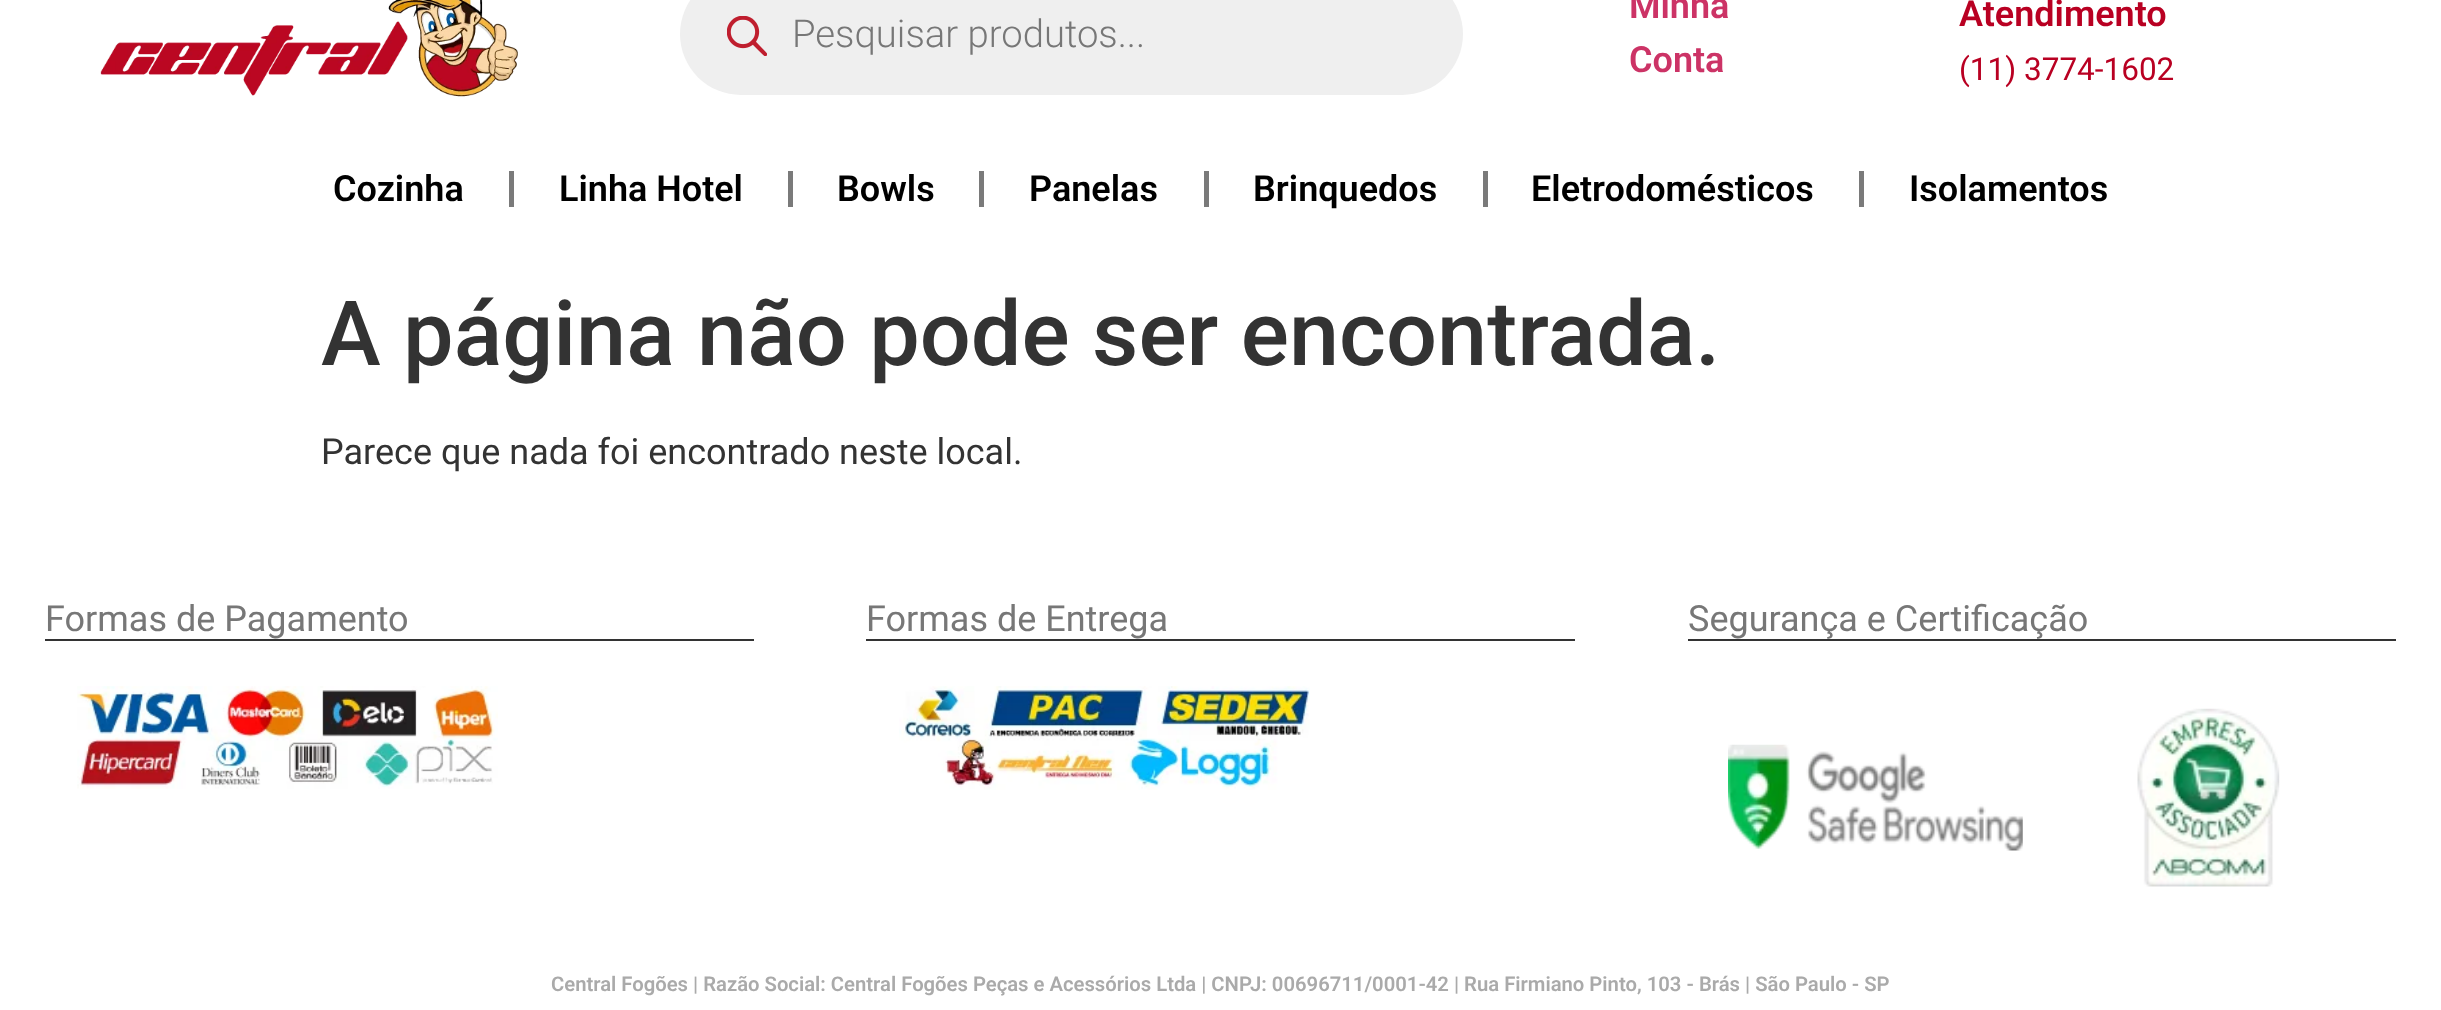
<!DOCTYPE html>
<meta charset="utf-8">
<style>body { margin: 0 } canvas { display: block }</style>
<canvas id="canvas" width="2441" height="1010"></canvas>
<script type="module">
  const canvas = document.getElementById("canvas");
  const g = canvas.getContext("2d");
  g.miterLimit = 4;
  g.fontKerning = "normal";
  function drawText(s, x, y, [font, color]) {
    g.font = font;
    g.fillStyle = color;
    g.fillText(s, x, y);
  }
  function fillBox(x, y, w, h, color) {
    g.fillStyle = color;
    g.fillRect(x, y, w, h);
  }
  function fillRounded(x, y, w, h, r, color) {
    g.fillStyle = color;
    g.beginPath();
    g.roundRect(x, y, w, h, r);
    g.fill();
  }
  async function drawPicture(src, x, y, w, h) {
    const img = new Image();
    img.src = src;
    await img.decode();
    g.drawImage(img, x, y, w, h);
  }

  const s1 = ["300 38.25px Roboto", "#777777"];
  const s2 = ["600 36px Roboto", "#CC3366"];
  const s3 = ["600 36px Roboto", "#B90022"];
  const s4 = ["31.5px Roboto", "#B90022"];
  const s5 = ["600 36px Roboto", "#000000"];
  const s6 = ["500 90px Roboto", "#333333"];
  const s7 = ["36px Roboto", "#333333"];
  const s8 = ["36px Roboto", "#777777"];
  const s9 = ["600 20.25px Roboto", "#AAAAAA"];

  fillBox(0, 0, 2441, 1010, "#FFFFFF");
  await drawPicture("pic1.png", 100, 0, 418, 97);
  fillRounded(680, -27, 783, 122, 61, "#EFEFEF");
  await drawPicture("pic2.png", 727, 16, 40, 40);
  drawText("Pesquisar produtos...", 792, 47, s1);
  drawText("Minha", 1629, 18, s2);
  drawText("Conta", 1629, 72, s2);
  drawText("Atendimento", 1959, 26, s3);
  drawText("(11) 3774-1602", 1959, 80, s4);
  drawText("Cozinha", 333, 201, s5);
  fillBox(509, 171, 5, 36, "#7A7A7A");
  drawText("Linha Hotel", 559, 201, s5);
  fillBox(788, 171, 5, 36, "#7A7A7A");
  drawText("Bowls", 837, 201, s5);
  fillBox(979, 171, 5, 36, "#7A7A7A");
  drawText("Panelas", 1029, 201, s5);
  fillBox(1204, 171, 5, 36, "#7A7A7A");
  drawText("Brinquedos", 1253, 201, s5);
  fillBox(1483, 171, 5, 36, "#7A7A7A");
  drawText("Eletrodomésticos", 1531, 201, s5);
  fillBox(1859, 171, 5, 36, "#7A7A7A");
  drawText("Isolamentos", 1909, 201, s5);
  drawText("A página não pode ser encontrada.", 321, 365, s6);
  drawText("Parece que nada foi encontrado neste local.", 321, 464, s7);
  fillBox(45, 639, 709, 2, "#333333");
  drawText("Formas de Pagamento", 45, 631, s8);
  await drawPicture("pic3.png", 77, 686, 421, 103);
  fillBox(866, 639, 709, 2, "#333333");
  drawText("Formas de Entrega", 866, 631, s8);
  await drawPicture("pic4.png", 899, 686, 411, 104);
  fillBox(1688, 639, 708, 2, "#333333");
  drawText("Segurança e Certificação", 1688, 631, s8);
  await drawPicture("pic5.png", 1728, 744, 295, 107);
  await drawPicture("pic6.png", 2137, 708, 143, 179);
  drawText("Central Fogões | Razão Social: Central Fogões Peças e Acessórios Ltda | CNPJ: 00696711/0001-42 | Rua Firmiano Pinto, 103 - Brás | São Paulo - SP", 551, 991, s9);
</script>
